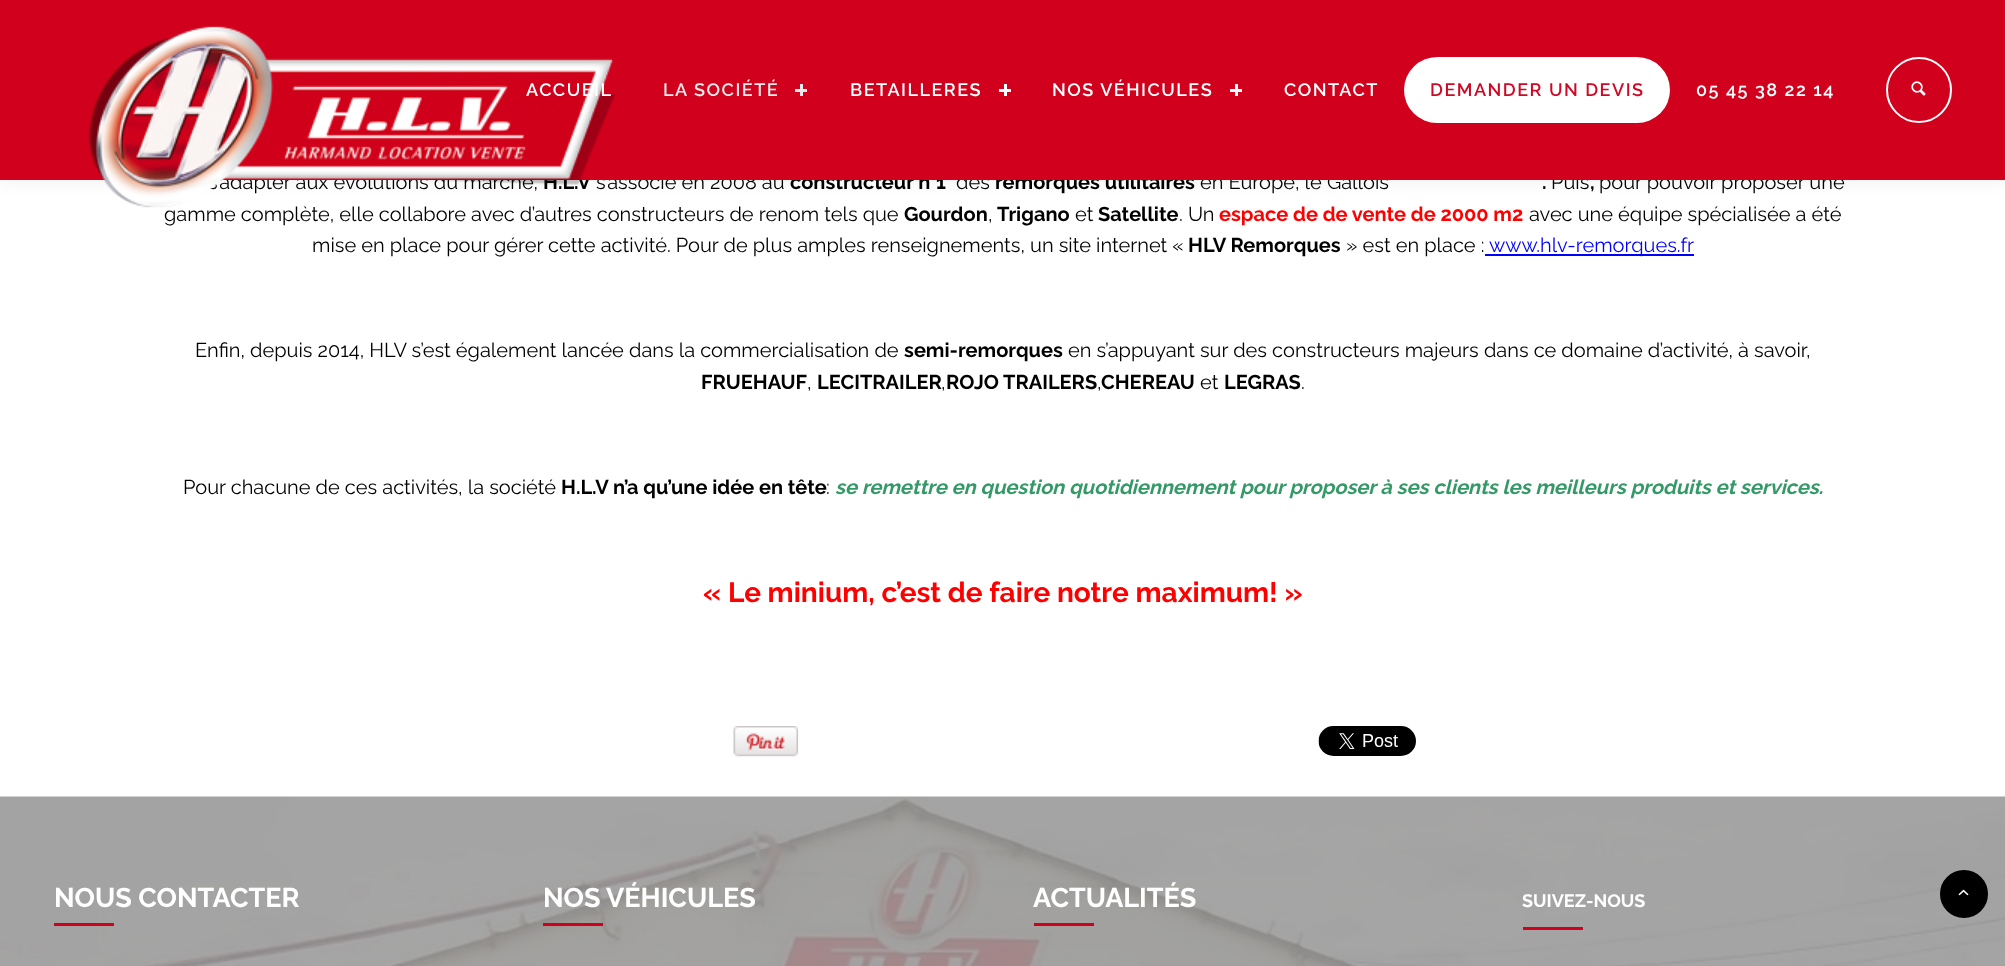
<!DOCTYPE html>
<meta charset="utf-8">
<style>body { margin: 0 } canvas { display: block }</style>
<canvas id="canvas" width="2005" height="966"></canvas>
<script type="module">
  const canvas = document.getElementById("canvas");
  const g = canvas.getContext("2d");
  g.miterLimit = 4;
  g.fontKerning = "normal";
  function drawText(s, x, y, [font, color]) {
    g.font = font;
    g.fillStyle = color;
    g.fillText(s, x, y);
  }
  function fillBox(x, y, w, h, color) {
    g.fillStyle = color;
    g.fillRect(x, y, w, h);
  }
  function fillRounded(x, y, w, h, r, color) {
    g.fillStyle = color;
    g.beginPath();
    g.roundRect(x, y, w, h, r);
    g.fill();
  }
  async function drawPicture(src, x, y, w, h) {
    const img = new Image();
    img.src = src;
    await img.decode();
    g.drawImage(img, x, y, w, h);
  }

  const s1 = ["20px Raleway", "#000000"];
  const s2 = ["bold 20px Raleway", "#000000"];
  const s3 = ["600 18px Raleway", "#FFFFFF"];
  const s4 = ["600 18px Raleway", "#EBEBEB"];
  const s5 = ["600 18px Raleway", "#CF0925"];
  const s6 = ["bold 20px Raleway", "#FF0000"];
  const s7 = ["20px Raleway", "#0000FF"];
  const s8 = ["italic bold 20px Raleway", "#339966"];
  const s9 = ["bold 28px Raleway", "#FF0000"];
  const s10 = ["bold 27px Raleway", "#FFFFFF"];
  const s11 = ["bold 18px Raleway", "#FFFFFF"];

  fillBox(0, 0, 2005, 966, "#FFFFFF");
  g.fillStyle = "rgba(0, 0, 0, 0.05)";
  g.filter = "blur(7.5px)";
  g.beginPath();
  g.rect(0, 3, 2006, 180);
  g.fill();
  g.filter = "none";
  drawText("s’adapter aux évolutions du marché,", 208, 189, s1);
  drawText("H.L.V", 543, 189, s2);
  drawText("s’associe en 2008 au", 596, 189, s1);
  drawText("constructeur n°1", 790, 189, s2);
  drawText("des", 956, 189, s1);
  drawText("remorques utilitaires", 995, 189, s2);
  drawText("en Europe, le Gallois", 1200, 189, s1);
  drawText("Puis", 1551, 189, s1);
  drawText("pour pouvoir proposer une", 1599, 189, s1);
  fillBox(0, 0, 2005, 180, "#D1001C");
  drawText("gamme complète, elle collabore avec d’autres constructeurs de renom tels que", 164, 221, s1);
  await drawPicture("pic1.png", 88, 26, 528, 182);
  g.letterSpacing = "1.5px";
  drawText("ACCUEIL", 526, 96, s3);
  drawText("LA SOCIÉTÉ", 663, 96, s4);
  fillBox(800, 84, 3, 12, "#EBEBEB");
  fillBox(795, 89, 12, 3, "#EBEBEB");
  drawText("BETAILLERES", 850, 96, s3);
  fillBox(1004, 84, 3, 12, "#FFFFFF");
  fillBox(999, 89, 12, 3, "#FFFFFF");
  drawText("NOS VÉHICULES", 1052, 96, s3);
  fillBox(1235, 84, 3, 12, "#FFFFFF");
  fillBox(1230, 89, 12, 3, "#FFFFFF");
  drawText("CONTACT", 1284, 96, s3);
  fillRounded(1404, 57, 266, 66, 33, "#FFFFFF");
  drawText("DEMANDER UN DEVIS", 1430, 96, s5);
  drawText("05 45 38 22 14", 1696, 96, s3);
  g.beginPath();
  g.arc(1919, 90, 32, 0, Math.PI * 2);
  g.strokeStyle = "#FFFFFF";
  g.lineWidth = 2;
  g.stroke();
  await drawPicture("pic2.png", 1911, 81, 15, 15);
  g.letterSpacing = "0px";
  drawText(".", 1542, 189, s2);
  drawText(",", 1590, 189, s2);
  drawText("Gourdon", 904, 221, s2);
  drawText(",", 988, 221, s1);
  drawText("Trigano", 997, 221, s2);
  drawText("et", 1075, 221, s1);
  drawText("Satellite", 1098, 221, s2);
  drawText(". Un", 1179, 221, s1);
  drawText("espace de de vente de 2000 m2", 1219, 221, s6);
  drawText("avec une équipe spécialisée a été", 1529, 221, s1);
  drawText("mise en place pour gérer cette activité. Pour de plus amples renseignements, un site internet «", 312, 252, s1);
  drawText("HLV Remorques", 1188, 252, s2);
  drawText("» est en place :", 1346, 252, s1);
  fillBox(1485, 254, 209, 2, "#0000FF");
  drawText("www.hlv-remorques.fr", 1489, 252, s7);
  drawText("Enfin, depuis 2014, HLV s’est également lancée dans la commercialisation de", 195, 357, s1);
  drawText("semi-remorques", 904, 357, s2);
  drawText("en s’appuyant sur des constructeurs majeurs dans ce domaine d’activité, à savoir,", 1068, 357, s1);
  drawText("FRUEHAUF", 701, 389, s2);
  drawText(",", 807, 389, s1);
  drawText("LECITRAILER", 817, 389, s2);
  drawText(",", 941, 389, s1);
  drawText("ROJO TRAILERS", 946, 389, s2);
  drawText(",", 1097, 389, s1);
  drawText("CHEREAU", 1101, 389, s2);
  drawText("et", 1200, 389, s1);
  drawText("LEGRAS", 1224, 389, s2);
  drawText(".", 1301, 389, s1);
  drawText("Pour chacune de ces activités, la société", 183, 494, s1);
  drawText("H.L.V n’a qu’une idée en tête", 561, 494, s2);
  drawText(":", 826, 494, s1);
  drawText("se remettre en question quotidiennement pour proposer à ses clients les meilleurs produits et services.", 835, 494, s8);
  drawText("« Le minium, c’est de faire notre maximum! »", 703, 602, s9);
  await drawPicture("pic3.png", 733, 726, 65, 31);
  await drawPicture("pic4.png", 1318, 726, 98, 30);
  await drawPicture("pic5.png", 0, 796, 2005, 170);
  drawText("NOUS CONTACTER", 54, 907, s10);
  fillBox(54, 923, 60, 3, "#D1001C");
  drawText("NOS VÉHICULES", 543, 907, s10);
  fillBox(543, 923, 60, 3, "#D1001C");
  drawText("ACTUALITÉS", 1033, 907, s10);
  fillBox(1034, 923, 60, 3, "#D1001C");
  drawText("SUIVEZ-NOUS", 1522, 907, s11);
  fillBox(1523, 927, 60, 3, "#D1001C");
  g.fillStyle = "#000000";
  g.beginPath();
  g.arc(1964, 894, 23, 0, Math.PI * 2);
  g.fill();
  g.strokeStyle = "#000000";
  g.stroke();
  await drawPicture("pic6.png", 1958, 889, 11, 7);
</script>
